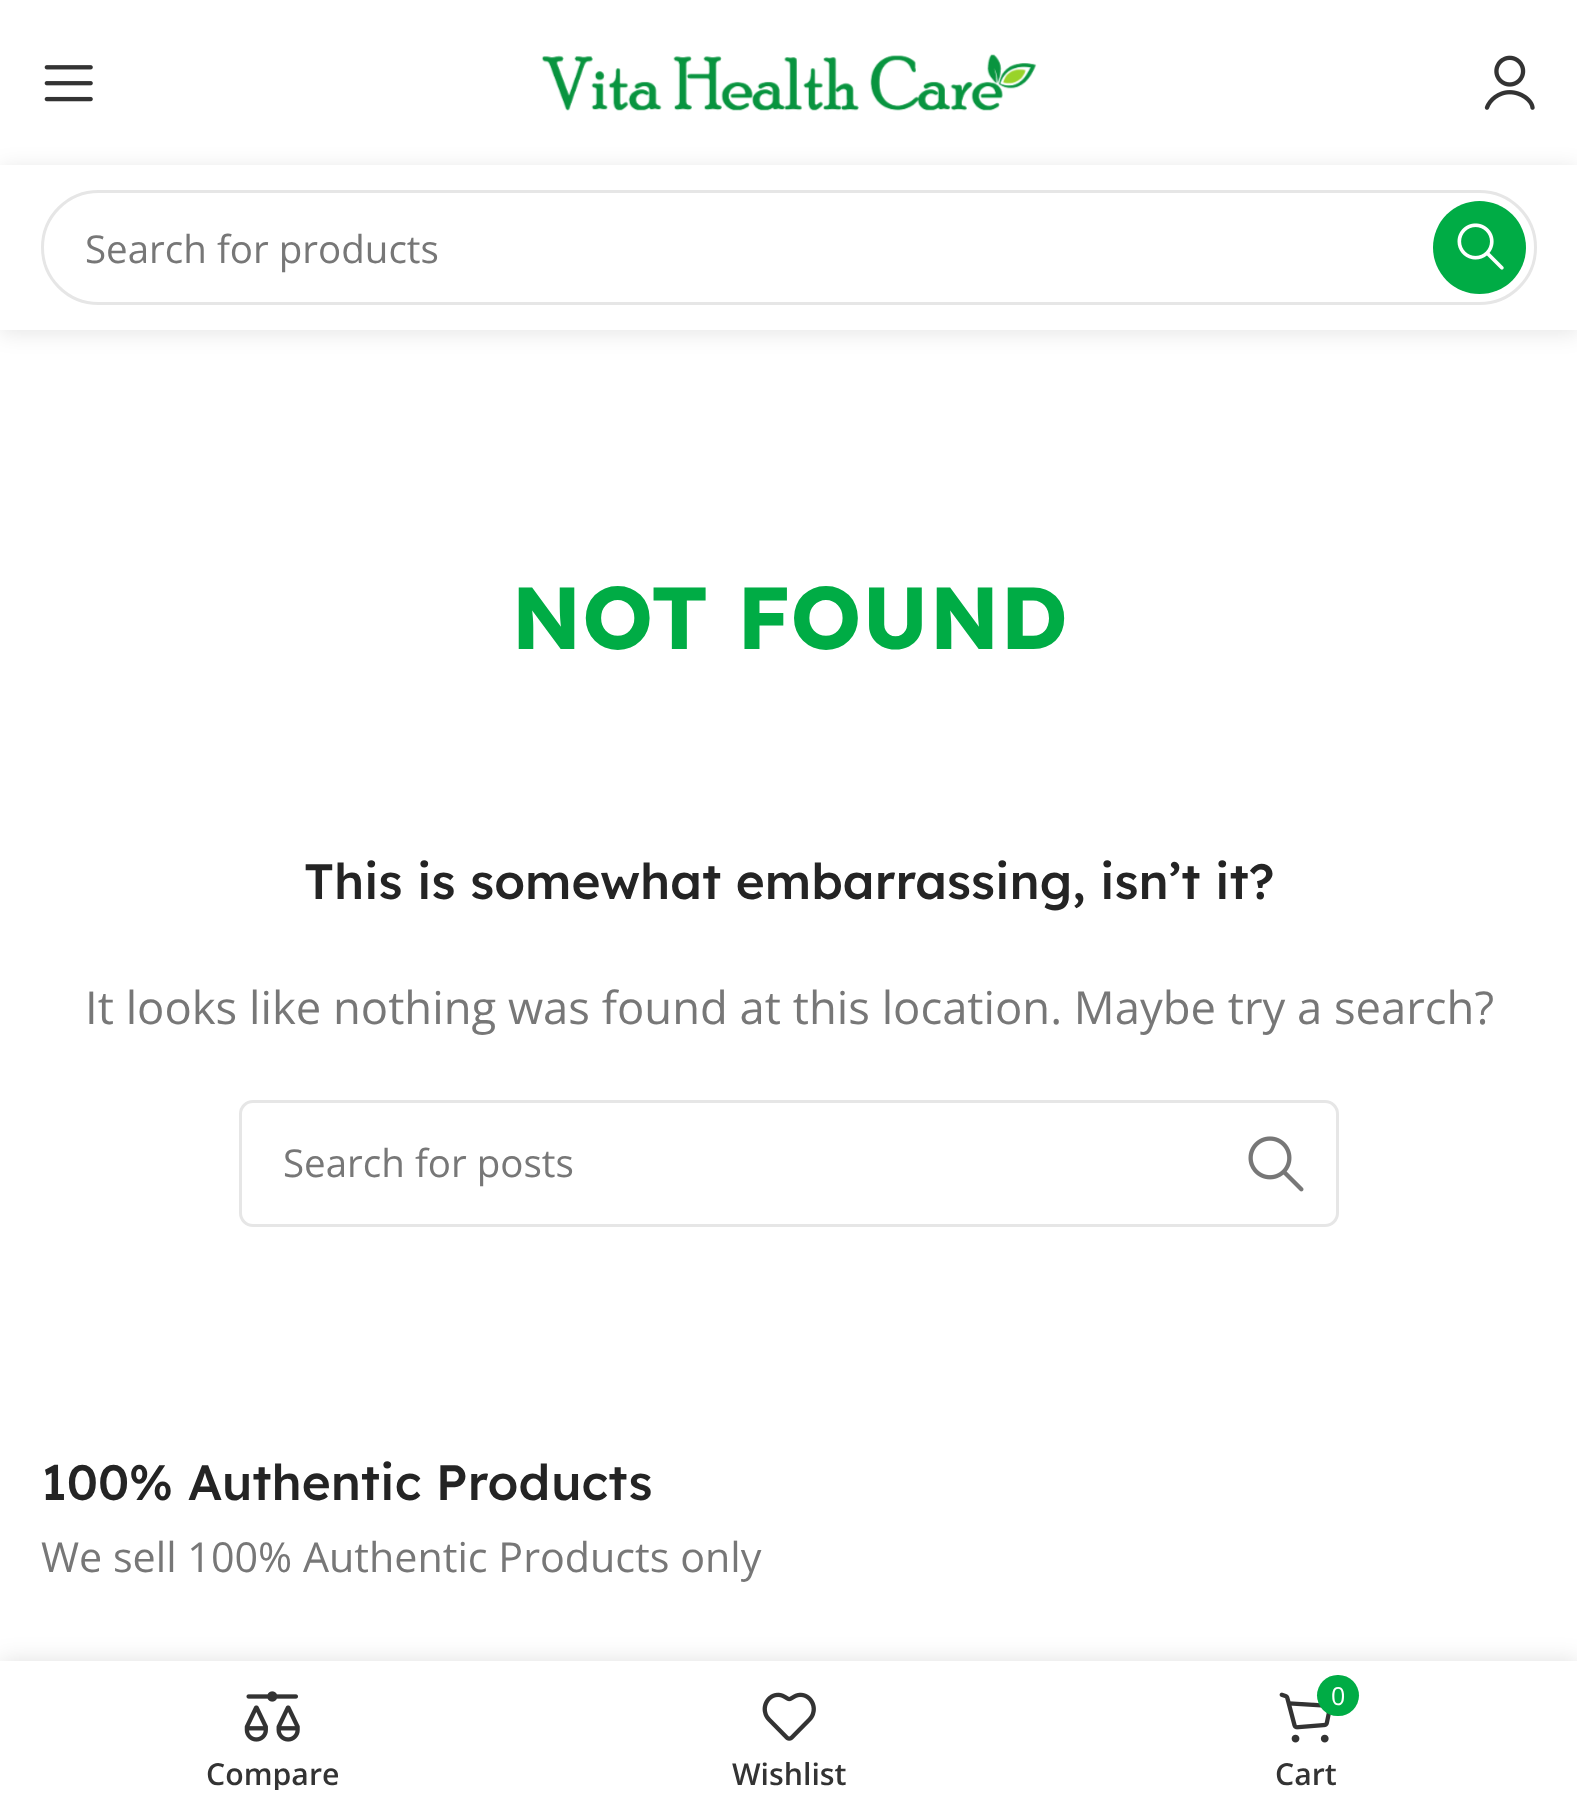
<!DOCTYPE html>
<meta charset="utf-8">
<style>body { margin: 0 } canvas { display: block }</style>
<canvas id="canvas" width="1577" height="1811"></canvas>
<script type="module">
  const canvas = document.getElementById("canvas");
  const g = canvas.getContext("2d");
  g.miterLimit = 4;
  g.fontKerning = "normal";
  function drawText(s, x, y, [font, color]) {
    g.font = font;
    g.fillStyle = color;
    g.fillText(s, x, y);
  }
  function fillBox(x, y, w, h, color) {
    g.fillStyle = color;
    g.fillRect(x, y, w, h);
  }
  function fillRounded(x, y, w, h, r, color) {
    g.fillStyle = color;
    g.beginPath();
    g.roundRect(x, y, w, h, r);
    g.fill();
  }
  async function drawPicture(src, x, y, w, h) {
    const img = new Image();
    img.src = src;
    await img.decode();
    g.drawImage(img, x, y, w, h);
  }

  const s1 = ["38.5px Open Sans", "#777777"];
  const s2 = ["bold 88px Lexend Deca", "#00AC45"];
  const s3 = ["500 49.5px Lexend Deca", "#242424"];
  const s4 = ["45.4px Open Sans", "#777777"];
  const s5 = ["41.25px Open Sans", "#777777"];
  const s6 = ["600 30.25px Open Sans", "#333333"];
  const s7 = ["25px Open Sans", "#FFFFFF"];

  fillBox(0, 0, 1577, 1811, "#FFFFFF");
  await drawPicture("pic1.png", 44, 65, 49, 37);
  await drawPicture("pic2.png", 541, 54, 496, 57);
  await drawPicture("pic3.png", 1484, 55, 51, 55);
  g.save();
  g.beginPath();
  g.moveTo(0, 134);
  g.lineTo(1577, 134);
  g.lineTo(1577, 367);
  g.lineTo(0, 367);
  g.closePath();
  g.moveTo(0, 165);
  g.lineTo(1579, 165);
  g.lineTo(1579, 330);
  g.lineTo(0, 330);
  g.closePath();
  g.clip("evenodd");
  g.fillStyle = "rgba(0, 0, 0, 0.1)";
  g.filter = "blur(11px)";
  g.beginPath();
  g.rect(0, 168, 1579, 165);
  g.fill();
  g.filter = "none";
  g.restore();
  g.beginPath();
  g.roundRect(42.5, 191.5, 1493, 112, 56);
  g.strokeStyle = "#E6E6E6";
  g.lineWidth = 3;
  g.stroke();
  drawText("Search for products", 85, 263, s1);
  g.fillStyle = "#00AC45";
  g.beginPath();
  g.arc(1479.5, 247.5, 46.5, 0, Math.PI * 2);
  g.fill();
  await drawPicture("pic4.png", 1457, 223, 47, 47);
  drawText("NOT FOUND", 511, 649, s2);
  drawText("This is somewhat embarrassing, isn’t it?", 304, 899, s3);
  drawText("It looks like nothing was found at this location. Maybe try a search?", 85, 1024, s4);
  g.beginPath();
  g.roundRect(240.5, 1101.5, 1097, 124, 12.5);
  g.stroke();
  drawText("Search for posts", 283, 1177, s1);
  await drawPicture("pic5.png", 1248, 1136, 56, 56);
  drawText("100% Authentic Products", 41, 1500, s3);
  drawText("We sell 100% Authentic Products only", 41, 1572, s5);
  g.fillStyle = "rgba(0, 0, 0, 0.12)";
  g.filter = "blur(12.5px)";
  g.beginPath();
  g.rect(0, 1661, 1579, 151);
  g.fill();
  g.filter = "none";
  fillBox(0, 1661, 1577, 150, "#FFFFFF");
  await drawPicture("pic6.png", 244, 1691, 56, 51);
  g.save();
  g.beginPath();
  g.rect(41, 1755, 462, 35);
  g.clip();
  drawText("Compare", 206, 1785, s6);
  g.restore();
  await drawPicture("pic7.png", 762, 1692, 54, 49);
  drawText("Wishlist", 732, 1785, s6);
  await drawPicture("pic8.png", 1279, 1692, 52, 51);
  fillRounded(1317, 1675, 42, 41, 20.5, "#00AC45");
  drawText("0", 1331, 1705, s7);
  drawText("Cart", 1275, 1785, s6);
</script>
